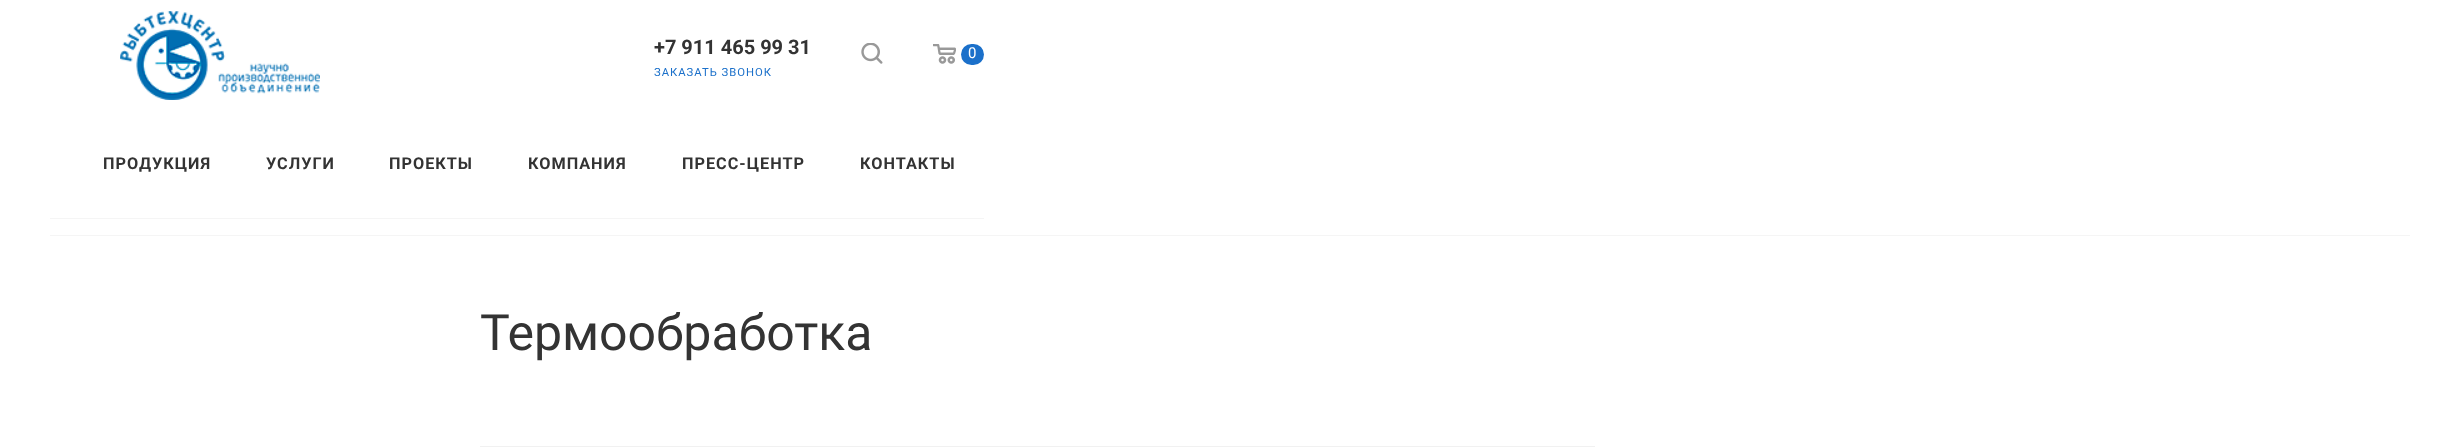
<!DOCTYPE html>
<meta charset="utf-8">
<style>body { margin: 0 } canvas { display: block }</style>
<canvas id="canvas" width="2460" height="447"></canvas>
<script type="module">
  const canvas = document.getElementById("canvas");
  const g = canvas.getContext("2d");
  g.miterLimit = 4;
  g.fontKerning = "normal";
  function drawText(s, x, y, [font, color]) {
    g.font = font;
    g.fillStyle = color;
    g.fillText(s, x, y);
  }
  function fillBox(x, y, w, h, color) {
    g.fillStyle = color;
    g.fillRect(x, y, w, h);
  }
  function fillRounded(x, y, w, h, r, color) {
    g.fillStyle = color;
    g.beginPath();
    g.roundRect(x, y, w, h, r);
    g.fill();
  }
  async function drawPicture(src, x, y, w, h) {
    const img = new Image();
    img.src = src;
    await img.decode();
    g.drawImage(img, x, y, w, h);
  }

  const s1 = ["bold 20px Roboto", "#333333"];
  const s2 = ["11.25px Roboto", "#1B70CA"];
  const s3 = ["15px Roboto", "#FFFFFF"];
  const s4 = ["bold 16.25px Roboto", "#333333"];
  const s5 = ["50px Roboto", "#333333"];

  fillBox(0, 0, 2460, 447, "#FFFFFF");
  fillBox(50, 235, 2360, 1, "#F5F5F5");
  fillBox(50, 218, 934, 1, "#F5F5F5");
  await drawPicture("pic1.png", 120, 11, 200, 89);
  drawText("+7 911 465 99 31", 654, 54, s1);
  g.letterSpacing = "1px";
  drawText("ЗАКАЗАТЬ ЗВОНОК", 654, 76, s2);
  await drawPicture("pic2.png", 861, 43, 22, 21);
  await drawPicture("pic3.png", 933, 44, 23, 20);
  fillRounded(961, 44, 23, 21, 10.5, "#1B70CA");
  g.letterSpacing = "0px";
  drawText("0", 968, 58, s3);
  g.letterSpacing = "1px";
  drawText("ПРОДУКЦИЯ", 103, 169, s4);
  drawText("УСЛУГИ", 266, 169, s4);
  drawText("ПРОЕКТЫ", 389, 169, s4);
  drawText("КОМПАНИЯ", 528, 169, s4);
  drawText("ПРЕСС-ЦЕНТР", 682, 169, s4);
  drawText("КОНТАКТЫ", 860, 169, s4);
  g.letterSpacing = "0px";
  drawText("Термообработка", 480, 350, s5);
  fillBox(480, 446, 1115, 1, "#F1F1F1");
</script>
